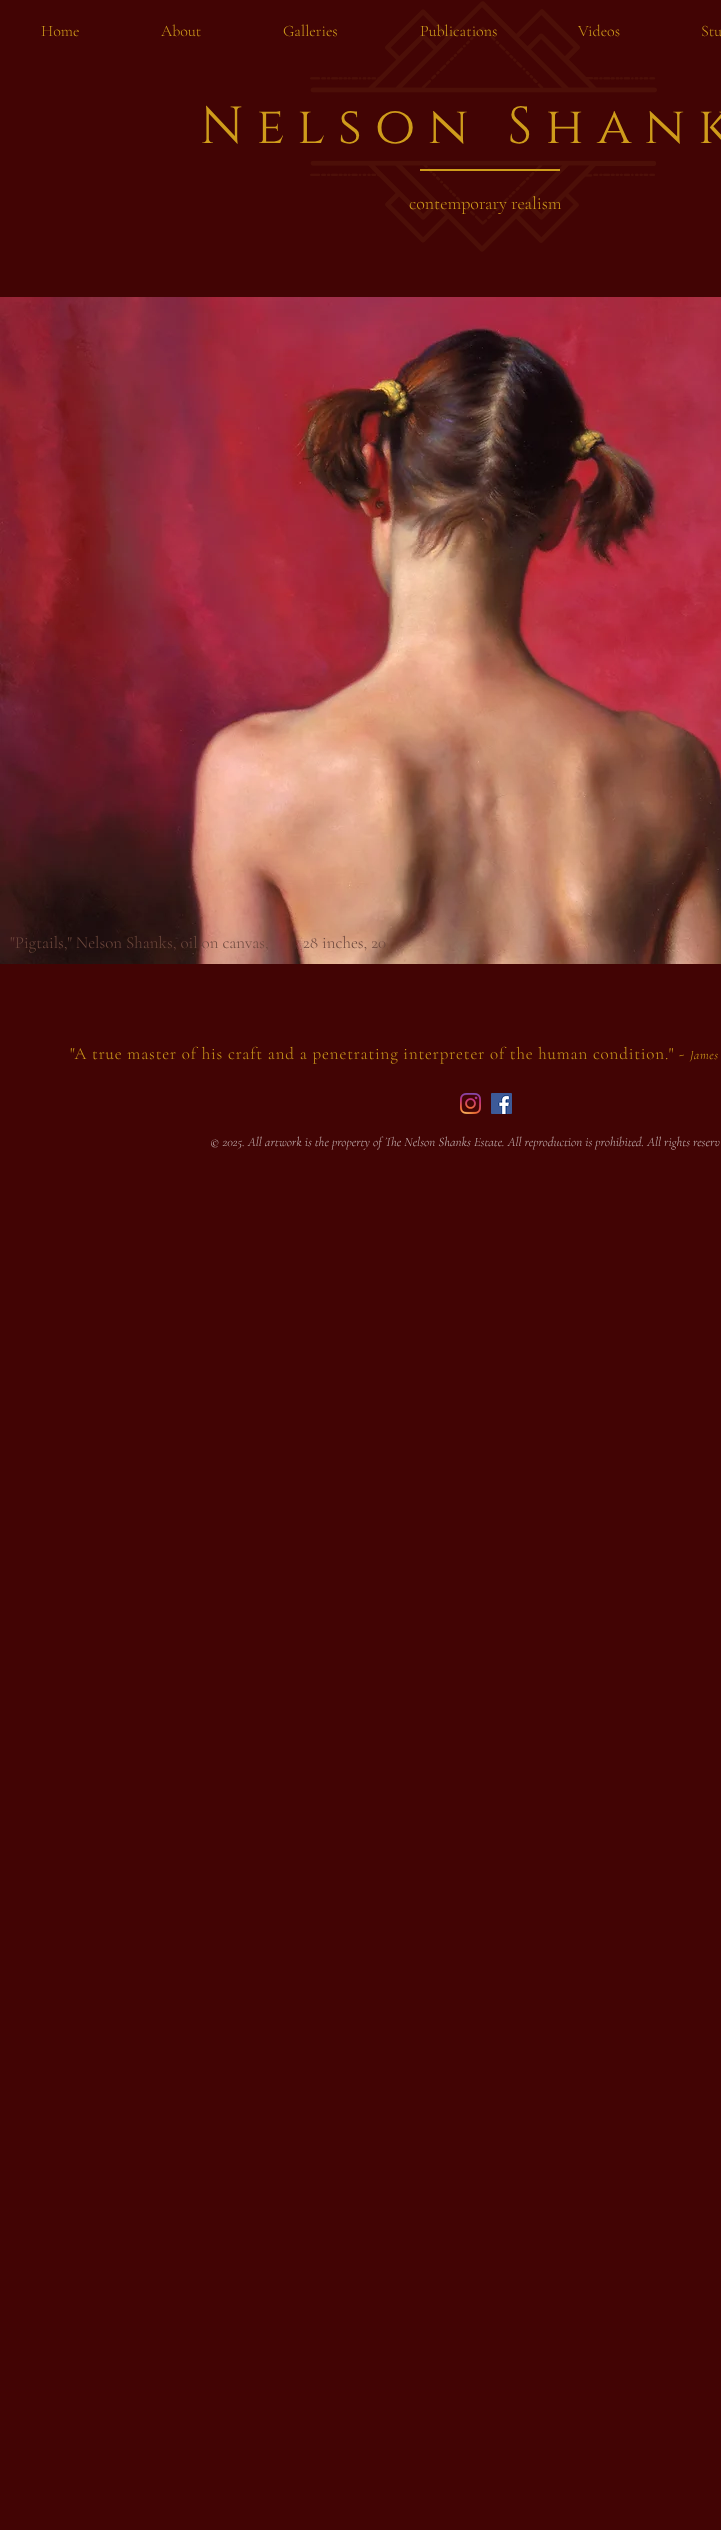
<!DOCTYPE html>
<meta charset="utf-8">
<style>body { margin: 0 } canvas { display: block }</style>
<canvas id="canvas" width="721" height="2530"></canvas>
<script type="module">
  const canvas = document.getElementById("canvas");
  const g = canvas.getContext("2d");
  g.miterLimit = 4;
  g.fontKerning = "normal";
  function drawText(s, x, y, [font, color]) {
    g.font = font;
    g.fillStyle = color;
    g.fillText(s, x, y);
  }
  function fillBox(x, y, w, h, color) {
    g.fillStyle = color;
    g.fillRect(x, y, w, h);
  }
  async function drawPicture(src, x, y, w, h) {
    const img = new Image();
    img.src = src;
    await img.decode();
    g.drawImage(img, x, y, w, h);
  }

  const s1 = ["300 16px Cormorant Garamond", "#CF9C1B"];
  const s2 = ["52px Cinzel", "#CF9C1B"];
  const s3 = ["300 18px Cormorant Garamond", "#CF9C1B"];
  const s4 = ["300 17px Cormorant Garamond", "#6D483D"];
  const s5 = ["300 17px Cormorant Garamond", "#CF9C1B"];
  const s6 = ["italic 300 13px Cormorant Garamond", "#CF9C1B"];
  const s7 = ["italic 300 13px Cormorant Garamond", "#C7B5B5"];

  fillBox(0, 0, 721, 2530, "#420404");
  await drawPicture("pic1.png", 310, 1, 347, 251);
  drawText("Home", 41, 36, s1);
  drawText("About", 161, 36, s1);
  drawText("Galleries", 283, 36, s1);
  drawText("Publications", 420, 36, s1);
  drawText("Videos", 578, 36, s1);
  drawText("Stu", 701, 36, s1);
  g.letterSpacing = "13px";
  drawText("Nelson Shank", 200, 143, s2);
  fillBox(420, 169, 140, 2, "#CF9C1B");
  g.letterSpacing = "0px";
  drawText("contemporary realism", 409, 209, s3);
  await drawPicture("pic2.png", 0, 297, 721, 667);
  drawText("\"Pigtails,\" Nelson Shanks, oil on canvas,", 10, 948, s4);
  drawText("28 inches, 20", 303, 948, s4);
  g.letterSpacing = "0.85px";
  drawText("\"A true master of his craft and a penetrating interpreter of the human condition.\" -", 70, 1059, s5);
  g.letterSpacing = "0.5px";
  drawText("James", 690, 1059, s6);
  await drawPicture("pic3.png", 460, 1093, 21, 21);
  await drawPicture("pic4.png", 491, 1093, 21, 21);
  g.letterSpacing = "0px";
  drawText("© 2025. All artwork is the property of The Nelson Shanks Estate. All reproduction is prohibited. All rights reserv", 210, 1146, s7);
</script>
